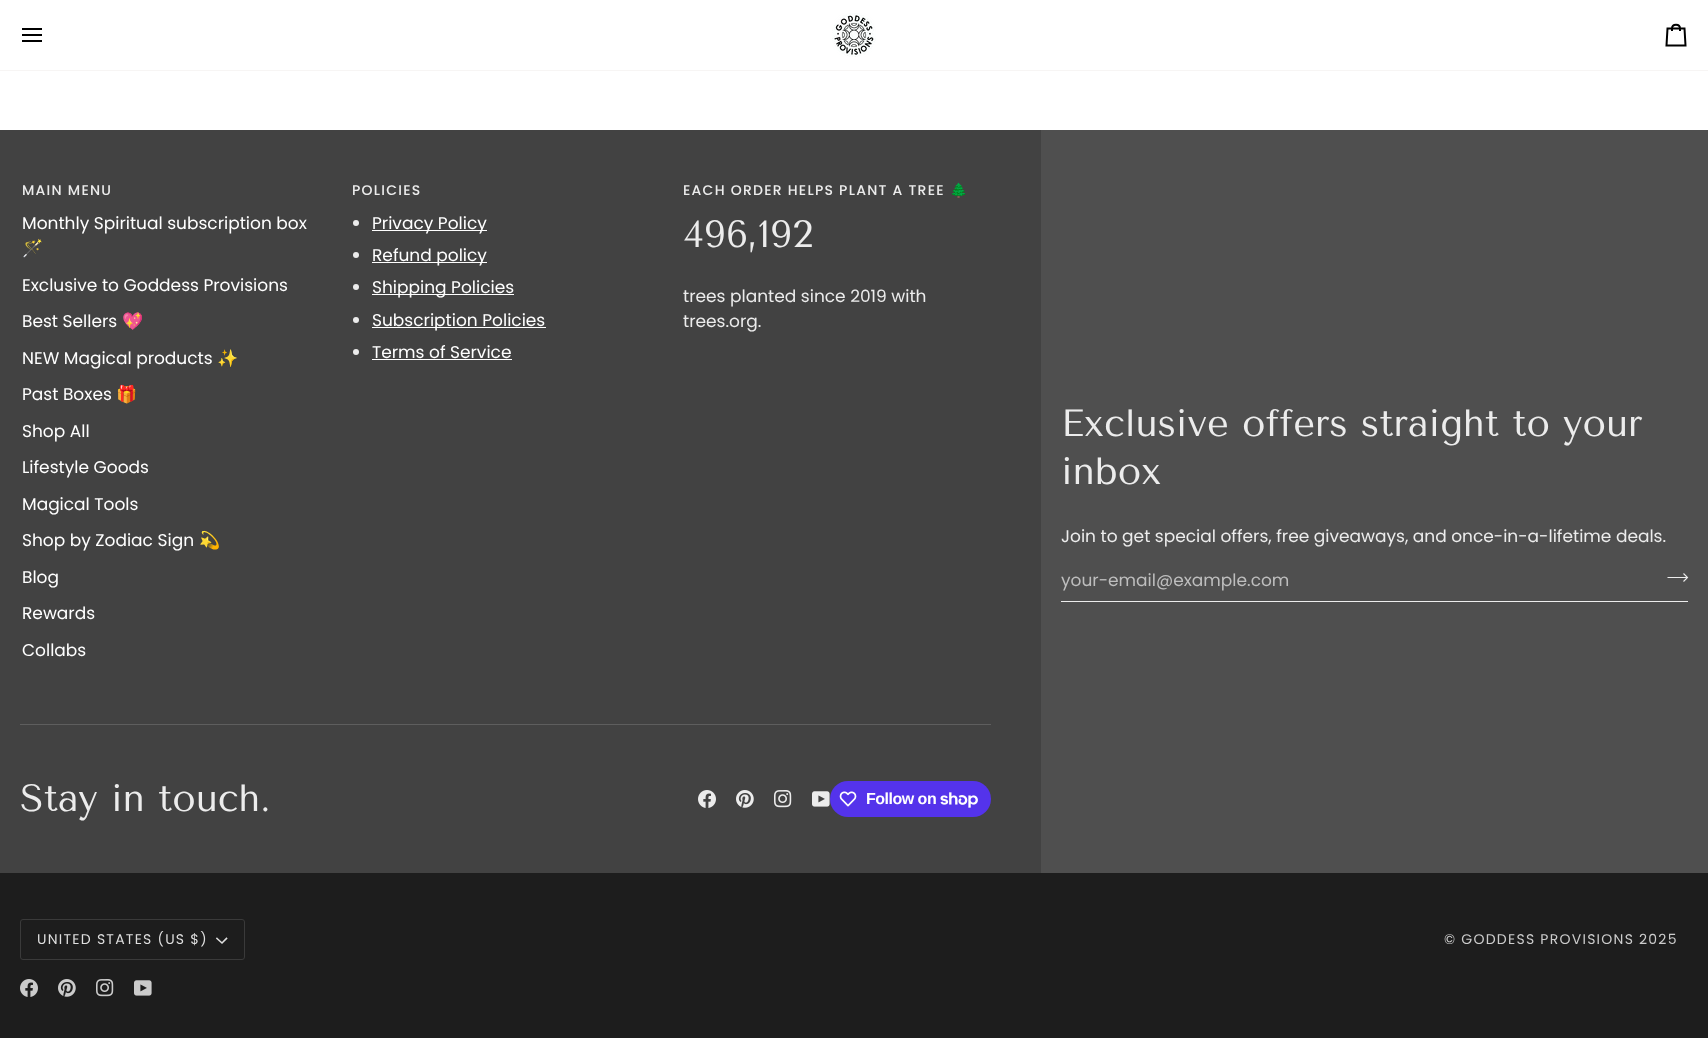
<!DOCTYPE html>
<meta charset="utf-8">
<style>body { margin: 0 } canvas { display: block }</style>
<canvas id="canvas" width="1708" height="1038"></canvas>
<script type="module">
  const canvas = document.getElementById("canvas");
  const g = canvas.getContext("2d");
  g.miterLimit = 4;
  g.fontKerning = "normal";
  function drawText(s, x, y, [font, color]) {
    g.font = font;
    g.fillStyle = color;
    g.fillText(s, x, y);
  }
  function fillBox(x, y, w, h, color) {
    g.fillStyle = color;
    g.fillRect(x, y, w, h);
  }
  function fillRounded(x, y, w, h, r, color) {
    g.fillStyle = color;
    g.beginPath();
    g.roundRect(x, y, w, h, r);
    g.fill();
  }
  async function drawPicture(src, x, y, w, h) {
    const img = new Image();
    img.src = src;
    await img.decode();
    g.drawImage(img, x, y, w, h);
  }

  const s1 = ["500 14px Poppins", "#ECECEC"];
  const s2 = ["17px Poppins", "#FFFFFF"];
  const s3 = ["17px Noto Color Emoji", "#FFFFFF"];
  const s4 = ["14px Noto Color Emoji", "#ECECEC"];
  const s5 = ["38px Tenor Sans", "#ECECEC"];
  const s6 = ["17px Poppins", "#ECECEC"];
  const s7 = ["bold 16px Liberation Sans", "#FFFFFF"];
  const s8 = ["17px Poppins", "#BEBEBE"];
  const s9 = ["14px Poppins", "#DFDFDF"];
  const s10 = ["14px Poppins", "#CCCCCC"];

  fillBox(0, 0, 1708, 1038, "#FFFFFF");
  fillBox(0, 70, 1708, 1, "#F7F5F4");
  g.beginPath();
  g.moveTo(41, 29);
  g.lineTo(23, 29);
  g.moveTo(41, 35);
  g.lineTo(23, 35);
  g.moveTo(41, 41);
  g.lineTo(23, 41);
  g.strokeStyle = "#000000";
  g.lineWidth = 2;
  g.lineCap = "square";
  g.stroke();
  await drawPicture("pic1.png", 832, 13, 44, 44);
  g.beginPath();
  g.moveTo(1680, 31);
  g.lineTo(1680, 28.5);
  g.lineTo(1684.5, 28.5);
  g.lineTo(1685.5, 45.5);
  g.lineTo(1666.5, 45.5);
  g.lineTo(1667.5, 28.5);
  g.lineTo(1672, 28.5);
  g.bezierCurveTo(1672, 23.5, 1680, 23.5, 1680, 28.5);
  g.lineTo(1672, 28.5);
  g.lineTo(1672, 31);
  g.lineCap = "butt";
  g.stroke();
  fillBox(0, 130, 1041, 743, "#424242");
  g.letterSpacing = "1.25px";
  drawText("MAIN MENU", 22, 195, s1);
  g.letterSpacing = "0px";
  drawText("Monthly Spiritual subscription box", 22, 229, s2);
  drawText("🪄", 22, 254, s3);
  drawText("Exclusive to Goddess Provisions", 22, 291, s2);
  drawText("Best Sellers", 22, 327, s2);
  drawText("💖", 122, 327, s3);
  drawText("NEW Magical products", 22, 364, s2);
  drawText("✨", 217, 364, s3);
  drawText("Past Boxes", 22, 400, s2);
  drawText("🎁", 116, 400, s3);
  drawText("Shop All", 22, 437, s2);
  drawText("Lifestyle Goods", 22, 473, s2);
  drawText("Magical Tools", 22, 510, s2);
  drawText("Shop by Zodiac Sign", 22, 546, s2);
  drawText("💫", 199, 546, s3);
  drawText("Blog", 22, 583, s2);
  drawText("Rewards", 22, 619, s2);
  drawText("Collabs", 22, 656, s2);
  g.letterSpacing = "1.25px";
  drawText("POLICIES", 352, 195, s1);
  g.beginPath();
  g.arc(356, 223, 3, 0, Math.PI * 2);
  g.fill();
  fillBox(372, 230, 115, 1, "#FFFFFF");
  g.letterSpacing = "0px";
  drawText("Privacy Policy", 372, 229, s2);
  g.fillStyle = "#ECECEC";
  g.beginPath();
  g.arc(356, 255, 3, 0, Math.PI * 2);
  g.fill();
  fillBox(372, 262, 115, 1, "#FFFFFF");
  drawText("Refund policy", 372, 261, s2);
  g.fillStyle = "#ECECEC";
  g.beginPath();
  g.arc(356, 287, 3, 0, Math.PI * 2);
  g.fill();
  fillBox(372, 294, 142, 1, "#FFFFFF");
  drawText("Shipping Policies", 372, 293, s2);
  g.fillStyle = "#ECECEC";
  g.beginPath();
  g.arc(356, 320, 3, 0, Math.PI * 2);
  g.fill();
  fillBox(372, 327, 174, 1, "#FFFFFF");
  drawText("Subscription Policies", 372, 326, s2);
  g.fillStyle = "#ECECEC";
  g.beginPath();
  g.arc(356, 352, 3, 0, Math.PI * 2);
  g.fill();
  drawText("Terms of Service", 372, 358, s2);
  fillBox(372, 359, 140, 1, "#FFFFFF");
  g.letterSpacing = "1.25px";
  drawText("EACH ORDER HELPS PLANT A TREE", 683, 195, s1);
  drawText("🌲", 950, 195, s4);
  g.letterSpacing = "0px";
  drawText("496,192", 683, 247, s5);
  drawText("trees planted since 2019 with", 683, 302, s6);
  drawText("trees.org.", 683, 327, s6);
  fillBox(20, 724, 971, 1, "#5E5E5E");
  drawText("Stay in touch.", 20, 811, s5);
  await drawPicture("pic2.png", 698, 790, 18, 18);
  await drawPicture("pic3.png", 736, 790, 18, 18);
  await drawPicture("pic4.png", 774, 790, 18, 18);
  await drawPicture("pic5.png", 812, 791, 18, 16);
  fillRounded(830, 781, 161, 36, 18, "#5433EB");
  await drawPicture("pic6.png", 839, 791, 18, 16);
  g.letterSpacing = "-0.5px";
  drawText("Follow on", 866, 804, s7);
  await drawPicture("pic7.png", 940, 792, 38, 16);
  fillBox(1041, 130, 667, 743, "#4F4F4F");
  g.letterSpacing = "0px";
  drawText("Exclusive offers straight to your", 1061, 436, s5);
  drawText("inbox", 1061, 484, s5);
  drawText("Join to get special offers, free giveaways, and once-in-a-lifetime deals.", 1061, 542, s6);
  fillBox(1061, 601, 627, 1, "#EDEDED");
  drawText("your-email@example.com", 1061, 586, s8);
  g.beginPath();
  g.moveTo(1683.5, 573.5);
  g.lineTo(1687.5, 577.5);
  g.lineTo(1683.5, 581.5);
  g.moveTo(1667.5, 577.5);
  g.lineTo(1687.5, 577.5);
  g.strokeStyle = "#EDEDED";
  g.lineWidth = 1.1;
  g.stroke();
  fillBox(0, 873, 1708, 165, "#1D1D1D");
  g.beginPath();
  g.roundRect(20.5, 919.5, 224, 40, 2.5);
  g.strokeStyle = "#3A3A3A";
  g.lineWidth = 1;
  g.stroke();
  g.letterSpacing = "1.25px";
  drawText("UNITED STATES (US $)", 37, 944, s9);
  g.beginPath();
  g.moveTo(217, 938.5);
  g.lineTo(222, 943);
  g.lineTo(226.5, 938.5);
  g.strokeStyle = "#DFDFDF";
  g.lineWidth = 1.6;
  g.lineCap = "square";
  g.stroke();
  drawText("© GODDESS PROVISIONS", 1444, 944, s10);
  drawText("2025", 1639, 944, s10);
  await drawPicture("pic8.png", 20, 979, 18, 18);
  await drawPicture("pic9.png", 58, 979, 18, 18);
  await drawPicture("pic10.png", 96, 979, 18, 18);
  await drawPicture("pic11.png", 134, 980, 18, 16);
</script>
